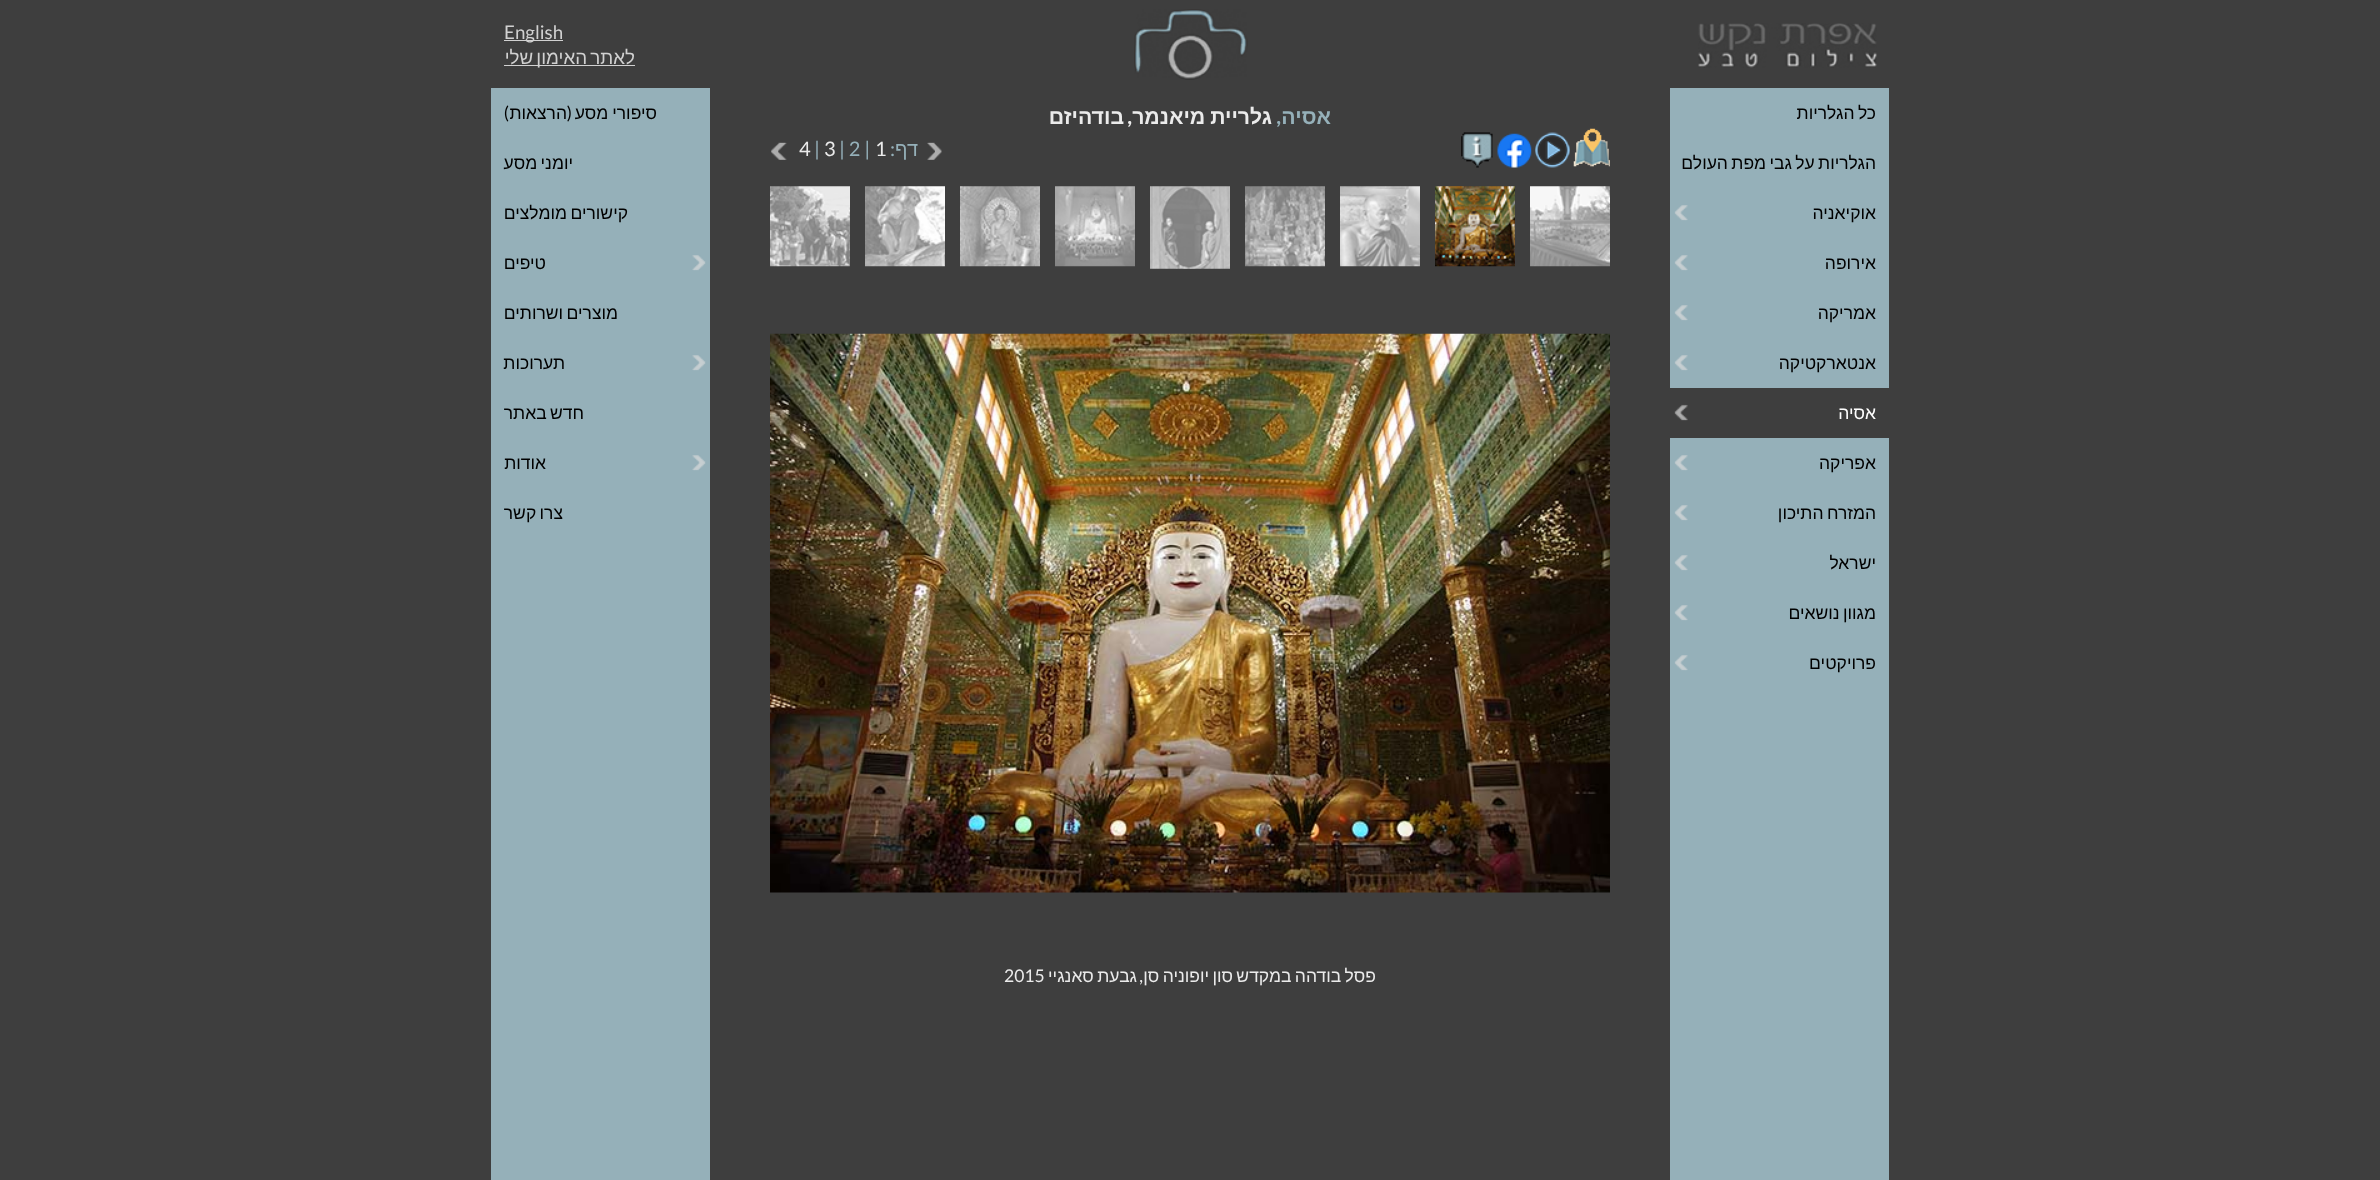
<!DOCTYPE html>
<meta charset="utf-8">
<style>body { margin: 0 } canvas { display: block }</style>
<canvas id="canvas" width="2380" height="1180"></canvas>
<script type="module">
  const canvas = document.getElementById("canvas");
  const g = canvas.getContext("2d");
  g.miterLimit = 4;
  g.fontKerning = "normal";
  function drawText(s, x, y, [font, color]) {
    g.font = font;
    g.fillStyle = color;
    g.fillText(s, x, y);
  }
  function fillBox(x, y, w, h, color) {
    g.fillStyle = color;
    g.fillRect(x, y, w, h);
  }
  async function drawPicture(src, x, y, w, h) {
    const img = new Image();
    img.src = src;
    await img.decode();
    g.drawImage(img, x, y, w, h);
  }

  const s1 = ["18.75px Lato", "#D1D1D1"];
  const s2 = ["18.75px Liberation Sans", "#D1D1D1"];
  const s3 = ["17.5px Liberation Sans", "#000000"];
  const s4 = ["17.5px Liberation Sans", "#FFFFFF"];
  const s5 = ["17.5px Lato", "#000000"];
  const s6 = ["bold 21.25px Liberation Sans", "#95B0B9"];
  const s7 = ["bold 21.25px Lato", "#95B0B9"];
  const s8 = ["bold 21.25px Liberation Sans", "#EBEBEB"];
  const s9 = ["bold 21.25px Lato", "#EBEBEB"];
  const s10 = ["20px Liberation Sans", "#95B0B9"];
  const s11 = ["20px Lato", "#95B0B9"];
  const s12 = ["20px Lato", "#EBEBEB"];
  const s13 = ["17.5px Liberation Sans", "#EBEBEB"];
  const s14 = ["17.5px Lato", "#EBEBEB"];

  fillBox(0, 0, 2380, 1180, "#3E3E3E");
  await drawPicture("pic1.png", 1134, 9, 114, 71);
  await drawPicture("pic2.png", 1698, 23, 179, 45);
  fillBox(504, 40, 59, 1, "#D1D1D1");
  drawText("English", 504, 39, s1);
  fillBox(504, 65, 131, 1, "#D1D1D1");
  g.wordSpacing = "-2px";
  g.direction = "rtl";
  drawText("לאתר האימון שלי", 635, 64, s2);
  fillBox(1670, 88, 219, 1092, "#95B0B9");
  g.wordSpacing = "-1.5px";
  drawText("כל הגלריות", 1876, 119, s3);
  drawText("הגלריות על גבי מפת העולם", 1876, 169, s3);
  await drawPicture("pic3.png", 1674, 205, 14, 16);
  g.wordSpacing = "0px";
  drawText("אוקיאניה", 1876, 219, s3);
  await drawPicture("pic3.png", 1674, 255, 14, 16);
  drawText("אירופה", 1876, 269, s3);
  await drawPicture("pic3.png", 1674, 305, 14, 16);
  drawText("אמריקה", 1876, 319, s3);
  await drawPicture("pic3.png", 1674, 355, 14, 16);
  drawText("אנטארקטיקה", 1876, 369, s3);
  fillBox(1670, 388, 219, 50, "#3E3E3E");
  await drawPicture("pic4.png", 1674, 404, 14, 17);
  drawText("אסיה", 1876, 419, s4);
  await drawPicture("pic3.png", 1674, 455, 14, 16);
  drawText("אפריקה", 1876, 469, s3);
  await drawPicture("pic3.png", 1674, 505, 14, 16);
  g.wordSpacing = "-1.5px";
  drawText("המזרח התיכון", 1876, 519, s3);
  await drawPicture("pic3.png", 1674, 555, 14, 16);
  g.wordSpacing = "0px";
  drawText("ישראל", 1876, 569, s3);
  await drawPicture("pic3.png", 1674, 605, 14, 16);
  g.wordSpacing = "-1.5px";
  drawText("מגוון נושאים", 1876, 619, s3);
  await drawPicture("pic3.png", 1674, 655, 14, 16);
  g.wordSpacing = "0px";
  drawText("פרויקטים", 1876, 669, s3);
  fillBox(491, 88, 219, 1092, "#95B0B9");
  g.wordSpacing = "-1px";
  drawText("סיפורי מסע", 657, 119, s3);
  g.wordSpacing = "0px";
  drawText("(", 572, 119, s5);
  drawText("הרצאות", 567, 119, s3);
  drawText(")", 509, 119, s5);
  g.wordSpacing = "-1.5px";
  drawText("יומני מסע", 573, 169, s3);
  drawText("קישורים מומלצים", 628, 219, s3);
  await drawPicture("pic5.png", 692, 255, 14, 16);
  g.wordSpacing = "0px";
  drawText("טיפים", 546, 269, s3);
  g.wordSpacing = "-1.5px";
  drawText("מוצרים ושרותים", 618, 319, s3);
  await drawPicture("pic5.png", 692, 355, 14, 16);
  g.wordSpacing = "0px";
  drawText("תערוכות", 565, 369, s3);
  g.wordSpacing = "-1.5px";
  drawText("חדש באתר", 584, 419, s3);
  await drawPicture("pic5.png", 692, 455, 14, 16);
  g.wordSpacing = "0px";
  drawText("אודות", 546, 469, s3);
  g.wordSpacing = "-1.5px";
  drawText("צרו קשר", 563, 519, s3);
  g.wordSpacing = "0px";
  drawText("אסיה", 1331, 124, s6);
  drawText(",", 1281, 124, s7);
  g.wordSpacing = "-1px";
  drawText("גלריית מיאנמר", 1272, 124, s8);
  g.wordSpacing = "0px";
  drawText(",", 1132, 124, s9);
  drawText("בודהיזם", 1124, 124, s8);
  await drawPicture("pic6.png", 1573, 128, 37, 39);
  await drawPicture("pic7.png", 1535, 132, 35, 36);
  await drawPicture("pic8.png", 1497, 133, 35, 35);
  await drawPicture("pic9.png", 1461, 132, 32, 36);
  await drawPicture("pic10.png", 927, 142, 15, 18);
  drawText("דף", 918, 156, s10);
  drawText(":", 895, 156, s11);
  g.direction = "ltr";
  drawText("1", 875, 156, s12);
  drawText("| 2 |", 839, 156, s11);
  drawText("3", 824, 156, s12);
  drawText("|", 814, 156, s11);
  drawText("4", 799, 156, s12);
  await drawPicture("pic11.png", 771, 142, 16, 18);
  await drawPicture("pic12.png", 1530, 186, 80, 81);
  await drawPicture("pic13.png", 1435, 186, 80, 81);
  await drawPicture("pic14.png", 1340, 186, 80, 81);
  await drawPicture("pic15.png", 1245, 186, 80, 81);
  await drawPicture("pic16.png", 1150, 186, 80, 83);
  await drawPicture("pic17.png", 1055, 186, 80, 81);
  await drawPicture("pic18.png", 960, 186, 80, 81);
  await drawPicture("pic19.png", 865, 186, 80, 81);
  await drawPicture("pic20.png", 770, 186, 80, 81);
  await drawPicture("pic21.png", 770, 333, 840, 560);
  g.wordSpacing = "-1.5px";
  g.direction = "rtl";
  drawText("פסל בודהה במקדש סון יופוניה סן", 1376, 982, s13);
  g.wordSpacing = "0px";
  drawText(",", 1143, 982, s14);
  g.wordSpacing = "-1.5px";
  drawText("גבעת סאנגיי", 1137, 982, s13);
  g.wordSpacing = "0px";
  g.direction = "ltr";
  drawText("2015", 1004, 982, s14);
</script>
